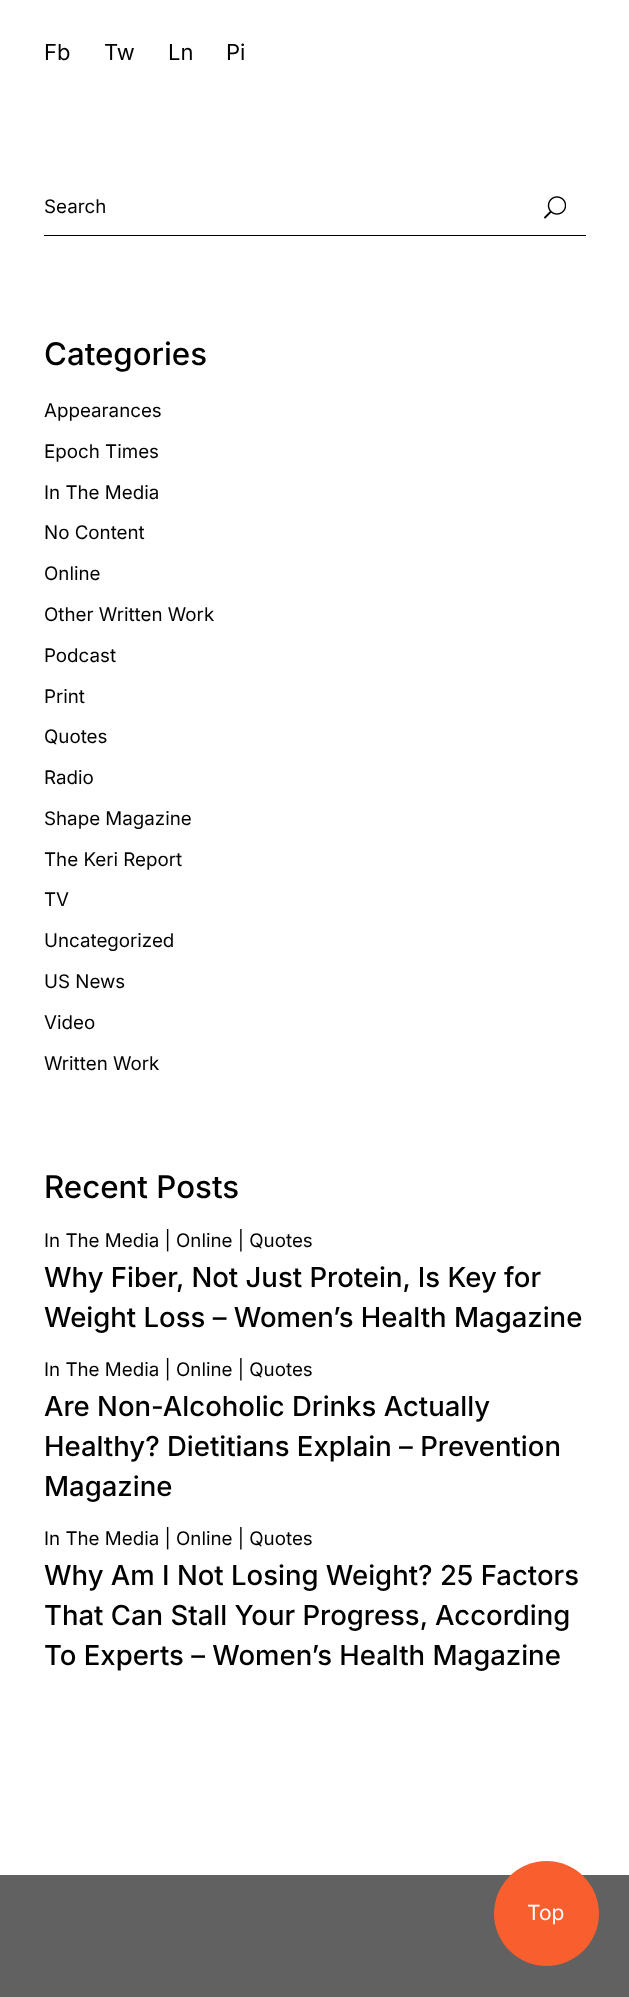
<!DOCTYPE html>
<meta charset="utf-8">
<style>body { margin: 0 } canvas { display: block }</style>
<canvas id="canvas" width="629" height="1997"></canvas>
<script type="module">
  const canvas = document.getElementById("canvas");
  const g = canvas.getContext("2d");
  g.miterLimit = 4;
  g.fontKerning = "normal";
  function drawText(s, x, y, [font, color]) {
    g.font = font;
    g.fillStyle = color;
    g.fillText(s, x, y);
  }
  function fillBox(x, y, w, h, color) {
    g.fillStyle = color;
    g.fillRect(x, y, w, h);
  }
  async function drawPicture(src, x, y, w, h) {
    const img = new Image();
    img.src = src;
    await img.decode();
    g.drawImage(img, x, y, w, h);
  }

  const s1 = ["22px Inter", "#000000"];
  const s2 = ["18.75px Inter", "#000000"];
  const s3 = ["500 31.25px Inter", "#000000"];
  const s4 = ["500 27.5px Inter", "#000000"];
  const s5 = ["21px Inter", "#FFFFFF"];

  fillBox(0, 0, 629, 1997, "#FFFFFF");
  drawText("Fb", 44, 60, s1);
  drawText("Tw", 104, 60, s1);
  drawText("Ln", 168, 60, s1);
  drawText("Pi", 226, 60, s1);
  fillBox(44, 235, 542, 1, "#000000");
  drawText("Search", 44, 213, s2);
  await drawPicture("pic1.png", 544, 196, 22, 23);
  drawText("Categories", 44, 365, s3);
  drawText("Appearances", 44, 417, s2);
  drawText("Epoch Times", 44, 458, s2);
  drawText("In The Media", 44, 499, s2);
  drawText("No Content", 44, 539, s2);
  drawText("Online", 44, 580, s2);
  drawText("Other Written Work", 44, 621, s2);
  drawText("Podcast", 44, 662, s2);
  drawText("Print", 44, 703, s2);
  drawText("Quotes", 44, 743, s2);
  drawText("Radio", 44, 784, s2);
  drawText("Shape Magazine", 44, 825, s2);
  drawText("The Keri Report", 44, 866, s2);
  drawText("TV", 44, 906, s2);
  drawText("Uncategorized", 44, 947, s2);
  drawText("US News", 44, 988, s2);
  drawText("Video", 44, 1029, s2);
  drawText("Written Work", 44, 1070, s2);
  drawText("Recent Posts", 44, 1198, s3);
  drawText("In The Media | Online | Quotes", 44, 1247, s2);
  drawText("Why Fiber, Not Just Protein, Is Key for", 44, 1287, s4);
  drawText("Weight Loss – Women’s Health Magazine", 44, 1327, s4);
  drawText("In The Media | Online | Quotes", 44, 1376, s2);
  drawText("Are Non-Alcoholic Drinks Actually", 44, 1416, s4);
  drawText("Healthy? Dietitians Explain – Prevention", 44, 1456, s4);
  drawText("Magazine", 44, 1496, s4);
  drawText("In The Media | Online | Quotes", 44, 1545, s2);
  drawText("Why Am I Not Losing Weight? 25 Factors", 44, 1585, s4);
  drawText("That Can Stall Your Progress, According", 44, 1625, s4);
  drawText("To Experts – Women’s Health Magazine", 44, 1665, s4);
  fillBox(0, 1875, 629, 122, "#616161");
  g.fillStyle = "#F85E2E";
  g.beginPath();
  g.arc(546.5, 1913.5, 52.5, 0, Math.PI * 2);
  g.fill();
  drawText("Top", 527, 1920, s5);
</script>
